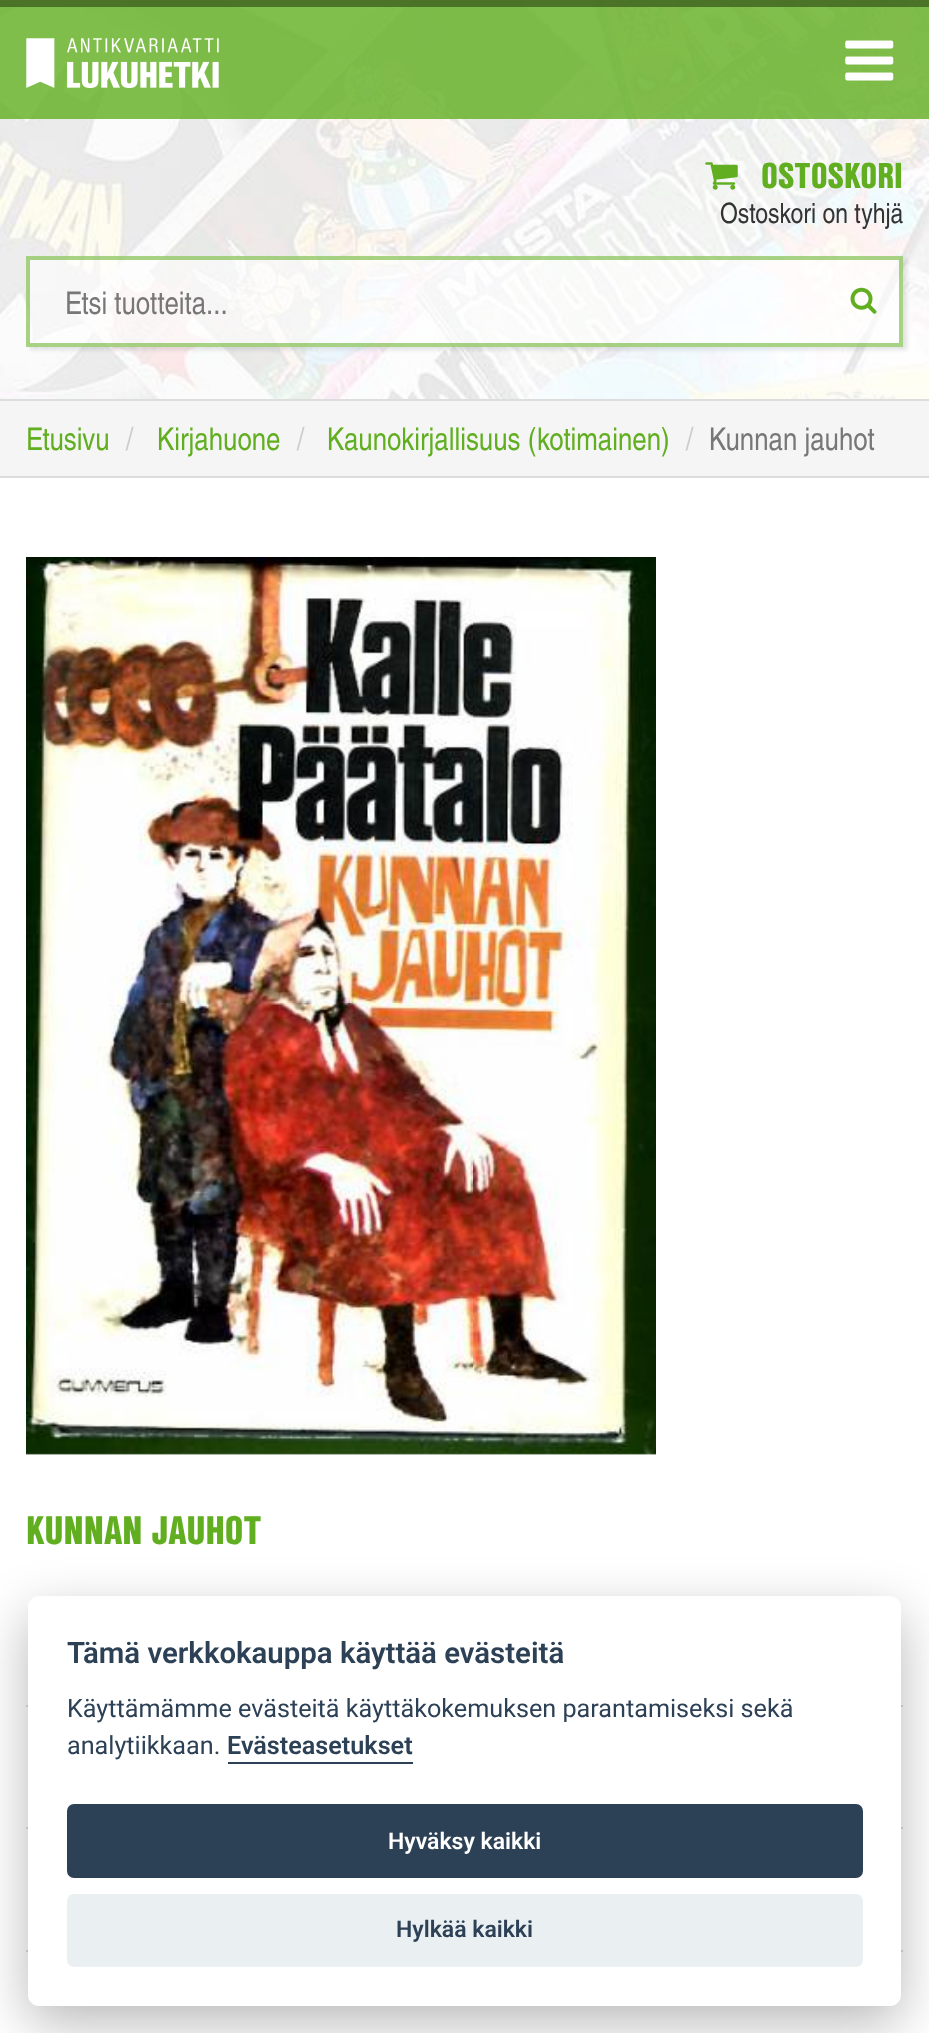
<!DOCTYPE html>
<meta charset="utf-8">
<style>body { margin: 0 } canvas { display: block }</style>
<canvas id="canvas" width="929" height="2033"></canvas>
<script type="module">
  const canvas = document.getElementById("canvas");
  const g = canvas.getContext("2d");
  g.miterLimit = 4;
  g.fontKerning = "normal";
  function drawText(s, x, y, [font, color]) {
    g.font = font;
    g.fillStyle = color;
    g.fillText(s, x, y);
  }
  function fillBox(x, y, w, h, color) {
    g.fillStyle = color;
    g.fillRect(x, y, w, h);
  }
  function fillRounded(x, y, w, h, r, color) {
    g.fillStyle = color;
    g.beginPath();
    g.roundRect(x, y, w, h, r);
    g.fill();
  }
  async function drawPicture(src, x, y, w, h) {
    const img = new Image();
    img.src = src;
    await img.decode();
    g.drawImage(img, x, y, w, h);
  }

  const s1 = ["900 35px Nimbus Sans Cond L", "#61AF20"];
  const s2 = ["28px Nimbus Sans Cond L", "#333333"];
  const s3 = ["31.5px Nimbus Sans Cond L", "#777777"];
  const s4 = ["31.5px Nimbus Sans Cond L", "#61AF20"];
  const s5 = ["31.5px Nimbus Sans Cond L", "#CCCCCC"];
  const s6 = ["900 38.5px Nimbus Sans Cond L", "#61AF20"];
  const s7 = ["600 29.4px Roboto", "#2D4156"];
  const s8 = ["25.2px Roboto", "#2D4156"];
  const s9 = ["600 25.2px Roboto", "#2D4156"];
  const s10 = ["600 23px Roboto", "#FFFFFF"];
  const s11 = ["600 23px Roboto", "#2D4156"];

  fillBox(0, 0, 929, 2033, "#FFFFFF");
  await drawPicture("pic1.png", 0, 0, 929, 399);
  fillBox(0, 0, 929, 119, "rgba(97, 175, 32, 0.8)");
  fillBox(0, 0, 929, 7, "rgba(63, 98, 33, 0.8)");
  await drawPicture("pic2.png", 26, 38, 193, 50);
  await drawPicture("pic3.png", 845, 40, 49, 41);
  await drawPicture("pic4.png", 705, 162, 33, 28);
  drawText("OSTOSKORI", 761, 188, s1);
  drawText("Ostoskori on tyhjä", 720, 223, s2);
  g.save();
  g.beginPath();
  g.moveTo(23, 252);
  g.lineTo(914, 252);
  g.lineTo(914, 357);
  g.lineTo(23, 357);
  g.closePath();
  g.moveTo(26, 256);
  g.lineTo(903, 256);
  g.lineTo(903, 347);
  g.lineTo(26, 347);
  g.closePath();
  g.clip("evenodd");
  g.fillStyle = "rgba(0, 0, 0, 0.1)";
  g.filter = "blur(2px)";
  g.beginPath();
  g.rect(30, 259, 877, 91);
  g.fill();
  g.filter = "none";
  g.restore();
  fillBox(26, 256, 877, 91, "rgba(255, 255, 255, 0.6)");
  g.strokeStyle = "rgba(97, 175, 32, 0.55)";
  g.lineWidth = 4;
  g.strokeRect(28, 258, 873, 87);
  drawText("Etsi tuotteita...", 65, 314, s3);
  await drawPicture("pic5.png", 850, 287, 27, 27);
  fillBox(0, 401, 929, 75, "#F5F5F5");
  fillBox(0, 399, 929, 2, "#DDDDDD");
  fillBox(0, 476, 929, 2, "#DDDDDD");
  drawText("Etusivu", 26, 450, s4);
  drawText("/", 126, 450, s5);
  drawText("Kirjahuone", 157, 450, s4);
  drawText("/", 297, 450, s5);
  drawText("Kaunokirjallisuus (kotimainen)", 327, 450, s4);
  drawText("/", 686, 450, s5);
  drawText("Kunnan jauhot", 709, 450, s3);
  await drawPicture("pic6.png", 26, 557, 630, 898);
  drawText("KUNNAN JAUHOT", 26, 1544, s6);
  fillBox(26, 1705, 877, 2, "#DDDDDD");
  fillBox(26, 1827, 877, 2, "#DDDDDD");
  fillBox(26, 1950, 877, 2, "#DDDDDD");
  g.fillStyle = "rgba(2, 2, 3, 0.28)";
  g.filter = "blur(26px)";
  g.beginPath();
  g.roundRect(28, 1614, 873, 409, 11);
  g.fill();
  g.filter = "none";
  fillRounded(28, 1596, 873, 410, 11, "#FFFFFF");
  drawText("Tämä verkkokauppa käyttää evästeitä", 67, 1663, s7);
  drawText("Käyttämämme evästeitä käyttäkokemuksen parantamiseksi sekä", 67, 1717, s8);
  drawText("analytiikkaan.", 67, 1754, s8);
  drawText("Evästeasetukset", 227, 1754, s9);
  fillBox(228, 1762, 185, 2, "#2D4156");
  fillRounded(67, 1804, 796, 74, 7, "#2D4156");
  drawText("Hyväksy kaikki", 388, 1849, s10);
  fillRounded(67, 1894, 796, 73, 7, "#EAEFF2");
  drawText("Hylkää kaikki", 396, 1937, s11);
</script>
